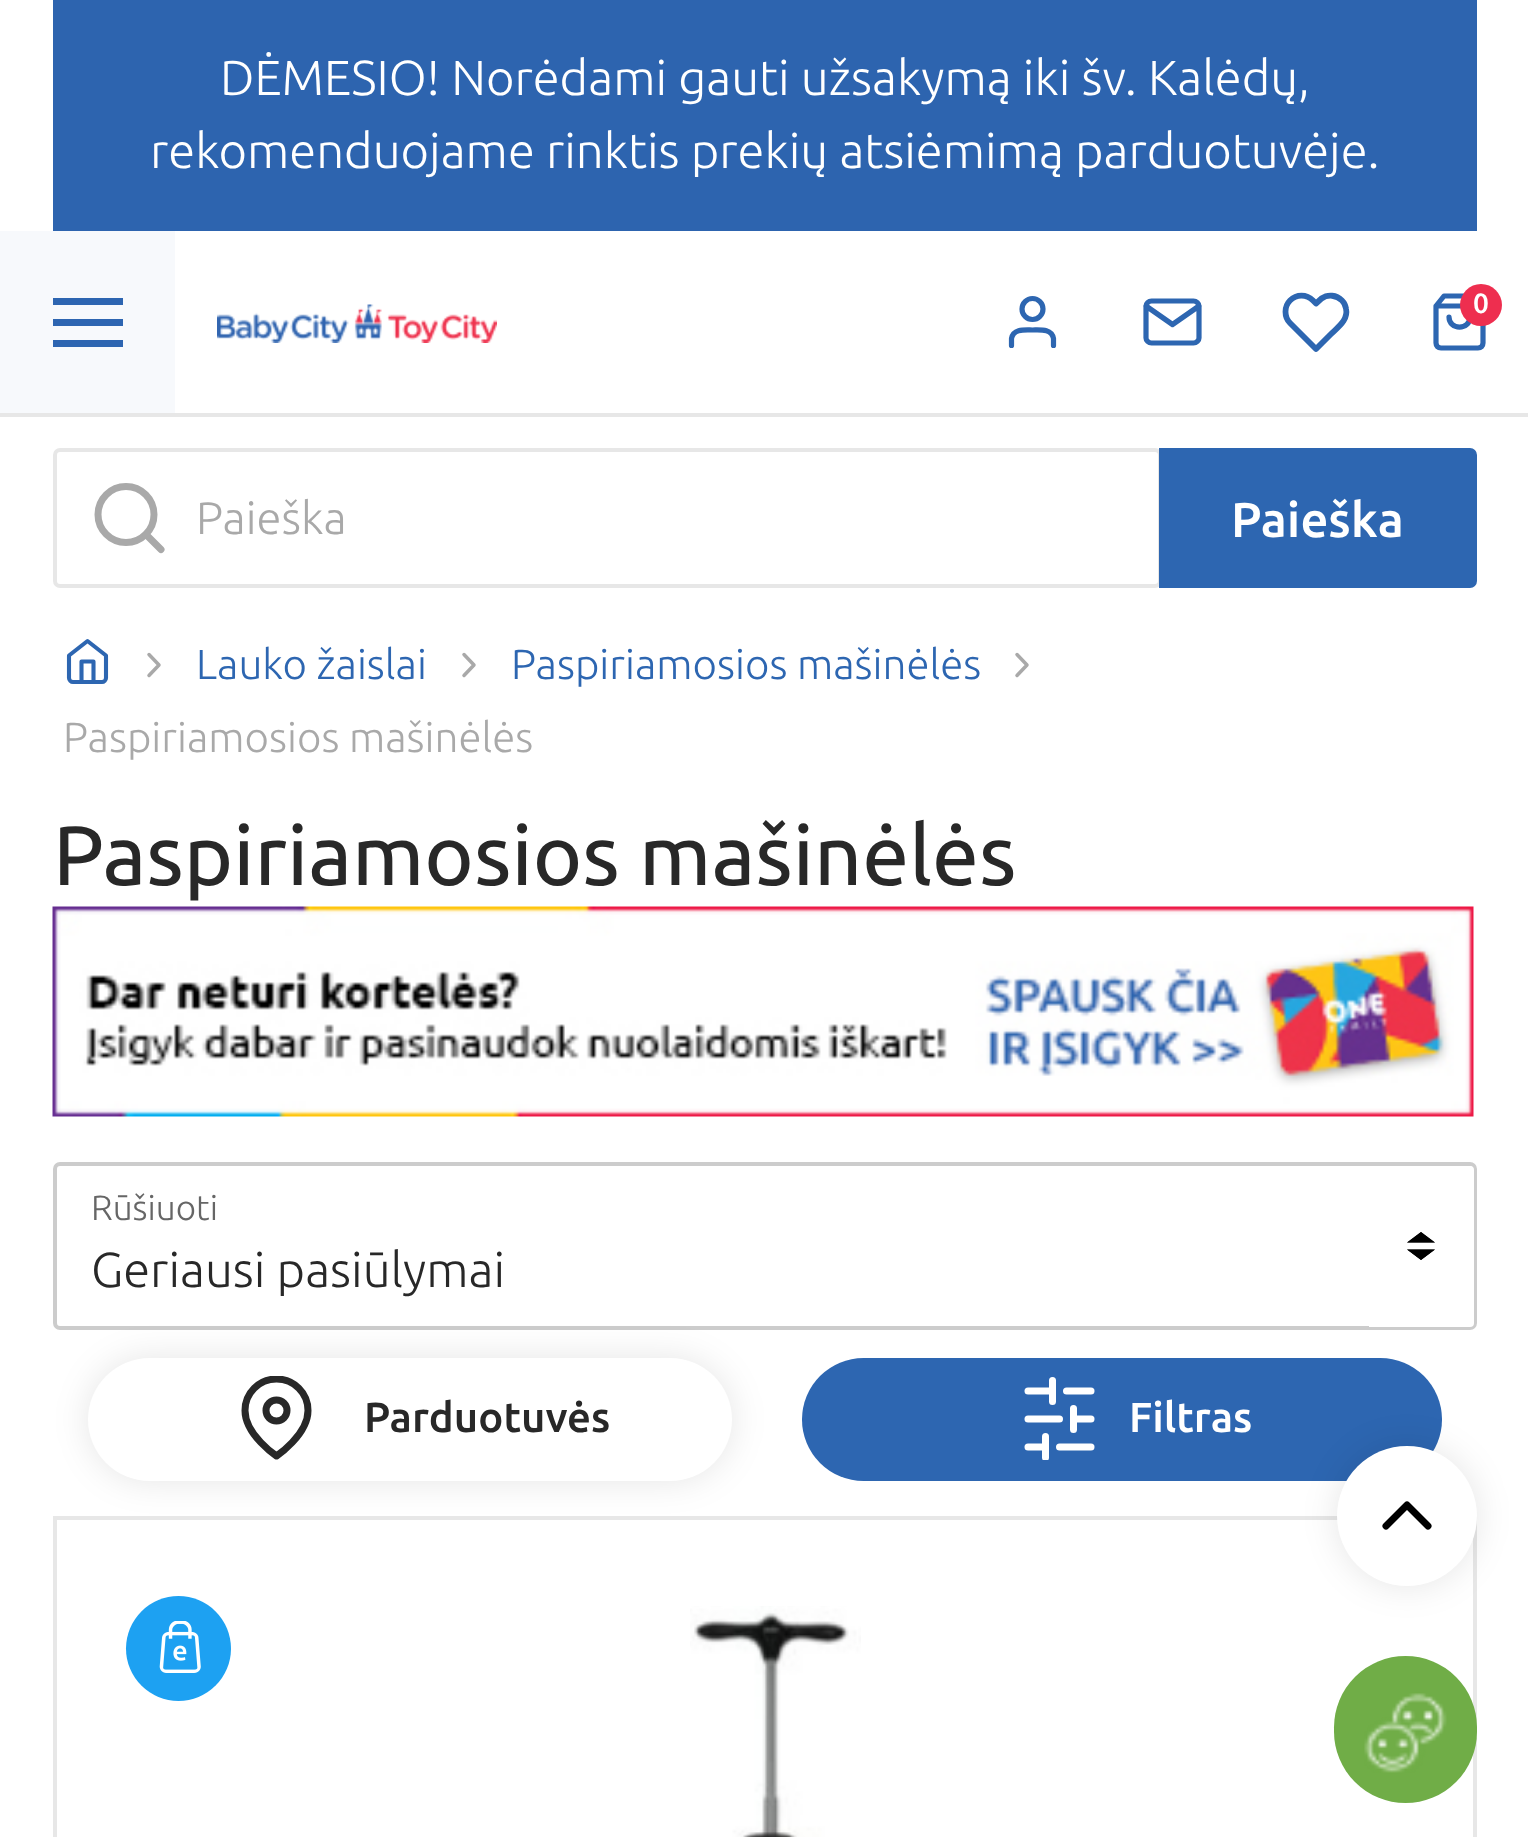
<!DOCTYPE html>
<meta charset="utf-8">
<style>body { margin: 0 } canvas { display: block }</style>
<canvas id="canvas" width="1528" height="1837"></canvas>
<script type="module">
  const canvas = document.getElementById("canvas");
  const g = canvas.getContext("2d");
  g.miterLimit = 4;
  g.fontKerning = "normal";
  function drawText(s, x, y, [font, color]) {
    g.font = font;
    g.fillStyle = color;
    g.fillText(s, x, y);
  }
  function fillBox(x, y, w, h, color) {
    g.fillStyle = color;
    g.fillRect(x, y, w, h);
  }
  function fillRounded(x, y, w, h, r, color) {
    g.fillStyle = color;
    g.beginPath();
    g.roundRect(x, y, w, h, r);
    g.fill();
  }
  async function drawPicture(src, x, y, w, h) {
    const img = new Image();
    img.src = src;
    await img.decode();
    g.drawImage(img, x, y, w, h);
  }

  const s1 = ["300 49px Ubuntu", "#FFFFFF"];
  const s2 = ["500 28px Ubuntu", "#FFFFFF"];
  const s3 = ["300 45.5px Ubuntu", "#A9A9A9"];
  const s4 = ["500 49px Ubuntu", "#FFFFFF"];
  const s5 = ["300 42px Ubuntu", "#2D66B1"];
  const s6 = ["300 42px Ubuntu", "#A9A9A9"];
  const s7 = ["84px Ubuntu", "#282828"];
  const s8 = ["300 35px Ubuntu", "#666666"];
  const s9 = ["300 49px Ubuntu", "#282828"];
  const s10 = ["500 42px Ubuntu", "#282828"];
  const s11 = ["500 42px Ubuntu", "#FFFFFF"];

  fillBox(0, 0, 1528, 1837, "#FFFFFF");
  fillBox(53, 0, 1424, 231, "#2D64AF");
  drawText("DĖMESIO! Norėdami gauti užsakymą iki šv. Kalėdų,", 220, 95, s1);
  drawText("rekomenduojame rinktis prekių atsiėmimą parduotuvėje.", 150, 168, s1);
  g.fillStyle = "#E7E7E7";
  g.beginPath();
  g.moveTo(0, 413);
  g.lineTo(0, 417);
  g.lineTo(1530, 417);
  g.lineTo(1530, 235);
  g.lineTo(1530, 413);
  g.closePath();
  g.fill();
  fillBox(0, 231, 175, 182, "#F7F9FC");
  fillBox(53, 298, 70, 7, "#2D65B1");
  fillBox(53, 319, 70, 7, "#2D65B1");
  fillBox(53, 340, 70, 7, "#2D65B1");
  await drawPicture("pic1.png", 217, 304, 280, 39);
  g.beginPath();
  g.moveTo(1053.5, 345.5);
  g.lineTo(1053.5, 338.5);
  g.bezierCurveTo(1051.5, 328.5, 1040, 330, 1032.5, 330);
  g.bezierCurveTo(1025, 330, 1013.5, 328.5, 1011.5, 338.5);
  g.lineTo(1011.5, 345.5);
  g.strokeStyle = "#2D66B1";
  g.lineWidth = 5.2;
  g.lineCap = "round";
  g.lineJoin = "round";
  g.stroke();
  g.beginPath();
  g.arc(1032.5, 309, 10.5, 0, Math.PI * 2);
  g.stroke();
  g.beginPath();
  g.moveTo(1151.5, 301);
  g.lineTo(1193.5, 301);
  g.bezierCurveTo(1196.5, 301, 1199, 303.5, 1199, 306);
  g.lineTo(1199, 338);
  g.bezierCurveTo(1199, 340.5, 1196.5, 343, 1193.5, 343);
  g.lineTo(1151.5, 343);
  g.bezierCurveTo(1148.5, 343, 1146, 340.5, 1146, 338);
  g.lineTo(1146, 306);
  g.bezierCurveTo(1146, 303.5, 1148.5, 301, 1151.5, 301);
  g.closePath();
  g.moveTo(1199, 306);
  g.lineTo(1172.5, 324.5);
  g.lineTo(1146, 306);
  g.stroke();
  g.beginPath();
  g.moveTo(1342, 300.5);
  g.bezierCurveTo(1336.5, 295, 1328, 294, 1321.5, 298.5);
  g.lineTo(1316, 303.5);
  g.lineTo(1313, 300.5);
  g.bezierCurveTo(1306.5, 294, 1296.5, 294, 1290, 300.5);
  g.bezierCurveTo(1284, 306.5, 1284, 317, 1290, 323);
  g.lineTo(1316, 349);
  g.lineTo(1331, 334);
  g.bezierCurveTo(1338, 327, 1348.5, 320, 1346, 308.5);
  g.bezierCurveTo(1345.5, 305.5, 1344, 302.5, 1342, 300.5);
  g.closePath();
  g.lineWidth = 5.8;
  g.stroke();
  g.beginPath();
  g.moveTo(1444, 296);
  g.lineTo(1436, 306);
  g.lineTo(1436, 343);
  g.bezierCurveTo(1436, 346, 1438, 348, 1441, 348);
  g.lineTo(1478, 348);
  g.bezierCurveTo(1481, 348, 1483, 346, 1483, 343);
  g.lineTo(1483, 306);
  g.lineTo(1475, 296);
  g.closePath();
  g.moveTo(1436, 306);
  g.lineTo(1483, 306);
  g.moveTo(1470, 317);
  g.bezierCurveTo(1470, 330.5, 1449, 330.5, 1449, 317);
  g.lineWidth = 5.2;
  g.stroke();
  g.fillStyle = "#EE2E4F";
  g.beginPath();
  g.arc(1481, 305, 21, 0, Math.PI * 2);
  g.fill();
  drawText("0", 1473, 313, s2);
  g.beginPath();
  g.roundRect(55, 450, 1105, 136, 5);
  g.strokeStyle = "#E7E7E7";
  g.lineWidth = 4;
  g.lineJoin = "miter";
  g.stroke();
  g.beginPath();
  g.arc(126, 514.5, 28, 0, Math.PI * 2);
  g.strokeStyle = "#A9A9A9";
  g.lineWidth = 7;
  g.stroke();
  g.beginPath();
  g.moveTo(161, 549.5);
  g.lineTo(146, 534.5);
  g.lineJoin = "round";
  g.stroke();
  drawText("Paieška", 196, 534, s3);
  g.fillStyle = "#2D66B1";
  g.beginPath();
  g.roundRect(1161, 450, 314, 136, [0, 5, 5, 0]);
  g.fill();
  g.strokeStyle = "#2D66B1";
  g.lineWidth = 4;
  g.lineJoin = "miter";
  g.stroke();
  drawText("Paieška", 1231, 537, s4);
  g.beginPath();
  g.moveTo(69, 655.5);
  g.lineTo(87.5, 641);
  g.lineTo(106, 655.5);
  g.lineTo(106, 678);
  g.bezierCurveTo(106, 680, 104, 682, 102, 682);
  g.lineTo(73, 682);
  g.bezierCurveTo(71, 682, 69, 680, 69, 678);
  g.closePath();
  g.moveTo(81.5, 682);
  g.lineTo(81.5, 661.5);
  g.lineTo(93.5, 661.5);
  g.lineTo(93.5, 682);
  g.lineWidth = 4.1;
  g.lineJoin = "round";
  g.stroke();
  g.beginPath();
  g.moveTo(149, 675.5);
  g.lineTo(159, 665);
  g.lineTo(149, 654.5);
  g.strokeStyle = "#A9A9A9";
  g.lineWidth = 3.5;
  g.stroke();
  drawText("Lauko žaislai", 196, 679, s5);
  g.beginPath();
  g.moveTo(464, 675.5);
  g.lineTo(474, 665);
  g.lineTo(464, 654.5);
  g.stroke();
  drawText("Paspiriamosios mašinėlės", 511, 679, s5);
  g.beginPath();
  g.moveTo(1017, 675.5);
  g.lineTo(1027, 665);
  g.lineTo(1017, 654.5);
  g.stroke();
  drawText("Paspiriamosios mašinėlės", 63, 752, s6);
  drawText("Paspiriamosios mašinėlės", 53, 885, s7);
  await drawPicture("pic2.png", 52, 906, 1422, 211);
  g.beginPath();
  g.roundRect(55, 1164, 1420, 164, 5);
  g.strokeStyle = "#CCCCCC";
  g.lineWidth = 4;
  g.lineJoin = "miter";
  g.stroke();
  drawText("Rūšiuoti", 91, 1220, s8);
  g.fillStyle = "#FFFFFF";
  g.beginPath();
  g.roundRect(1369, 1166, 105, 161, [0, 4, 4, 0]);
  g.fill();
  await drawPicture("pic3.png", 1407, 1232, 28, 28);
  drawText("Geriausi pasiūlymai", 91, 1287, s9);
  g.fillStyle = "rgba(0, 0, 0, 0.1)";
  g.filter = "blur(17.5px)";
  g.beginPath();
  g.roundRect(88, 1358, 644, 123, 61.5);
  g.fill();
  g.filter = "none";
  fillRounded(88, 1358, 644, 123, 61.5, "#FFFFFF");
  g.save();
  g.beginPath();
  g.rect(235, 1376, 84, 84);
  g.clip();
  g.beginPath();
  g.moveTo(308, 1410.5);
  g.bezierCurveTo(308, 1435, 276.5, 1456, 276.5, 1456);
  g.bezierCurveTo(276.5, 1456, 245, 1435, 245, 1410.5);
  g.bezierCurveTo(245, 1393, 259, 1379, 276.5, 1379);
  g.bezierCurveTo(294, 1379, 308, 1393, 308, 1410.5);
  g.closePath();
  g.strokeStyle = "#282828";
  g.lineWidth = 7;
  g.lineJoin = "round";
  g.stroke();
  g.restore();
  g.beginPath();
  g.arc(276.5, 1410.5, 10.5, 0, Math.PI * 2);
  g.strokeStyle = "#282828";
  g.lineWidth = 7;
  g.stroke();
  drawText("Parduotuvės", 364, 1432, s10);
  fillRounded(802, 1358, 640, 123, 61.5, "#2D66B1");
  g.beginPath();
  g.moveTo(1028, 1391);
  g.lineTo(1052.5, 1391);
  g.strokeStyle = "#FFFFFF";
  g.lineJoin = "round";
  g.stroke();
  g.beginPath();
  g.moveTo(1066.5, 1391);
  g.lineTo(1091, 1391);
  g.stroke();
  g.beginPath();
  g.moveTo(1028, 1419);
  g.lineTo(1059.5, 1419);
  g.stroke();
  g.beginPath();
  g.moveTo(1073.5, 1419);
  g.lineTo(1091, 1419);
  g.stroke();
  g.beginPath();
  g.moveTo(1028, 1447);
  g.lineTo(1045.5, 1447);
  g.stroke();
  g.beginPath();
  g.moveTo(1059.5, 1447);
  g.lineTo(1091, 1447);
  g.stroke();
  g.beginPath();
  g.moveTo(1052.5, 1380.5);
  g.lineTo(1052.5, 1401.5);
  g.moveTo(1073.5, 1408.5);
  g.lineTo(1073.5, 1429.5);
  g.stroke();
  g.save();
  g.beginPath();
  g.moveTo(1101, 1376);
  g.lineTo(1101, 1460);
  g.lineTo(1017, 1460);
  g.lineTo(1017, 1376);
  g.closePath();
  g.clip();
  g.beginPath();
  g.moveTo(1101, 1376);
  g.lineTo(1101, 1460);
  g.lineTo(1017, 1460);
  g.lineTo(1017, 1376);
  g.closePath();
  g.clip();
  g.beginPath();
  g.moveTo(1045.5, 1436.5);
  g.lineTo(1045.5, 1457.5);
  g.stroke();
  g.restore();
  drawText("Filtras", 1129, 1432, s11);
  g.strokeStyle = "#E7E7E7";
  g.lineWidth = 4;
  g.lineJoin = "miter";
  g.strokeRect(55, 1518, 1420, 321);
  g.fillStyle = "#1DA1F2";
  g.beginPath();
  g.arc(178.5, 1648.5, 52.5, 0, Math.PI * 2);
  g.fill();
  await drawPicture("pic4.png", 159, 1621, 42, 52);
  await drawPicture("pic5.png", 690, 1606, 171, 231);
  g.fillStyle = "rgba(0, 0, 0, 0.1)";
  g.filter = "blur(17.5px)";
  g.beginPath();
  g.roundRect(1337, 1446, 140, 140, 70);
  g.fill();
  g.filter = "none";
  g.fillStyle = "#FFFFFF";
  g.beginPath();
  g.arc(1407, 1516, 70, 0, Math.PI * 2);
  g.fill();
  g.beginPath();
  g.moveTo(1428, 1526);
  g.lineTo(1407, 1505);
  g.lineTo(1386, 1526);
  g.strokeStyle = "#000000";
  g.lineWidth = 7;
  g.lineJoin = "round";
  g.stroke();
  fillRounded(1334, 1656, 143, 147, 71.5, "#70AD47");
  await drawPicture("pic6.png", 1364, 1693, 83, 80);
</script>
